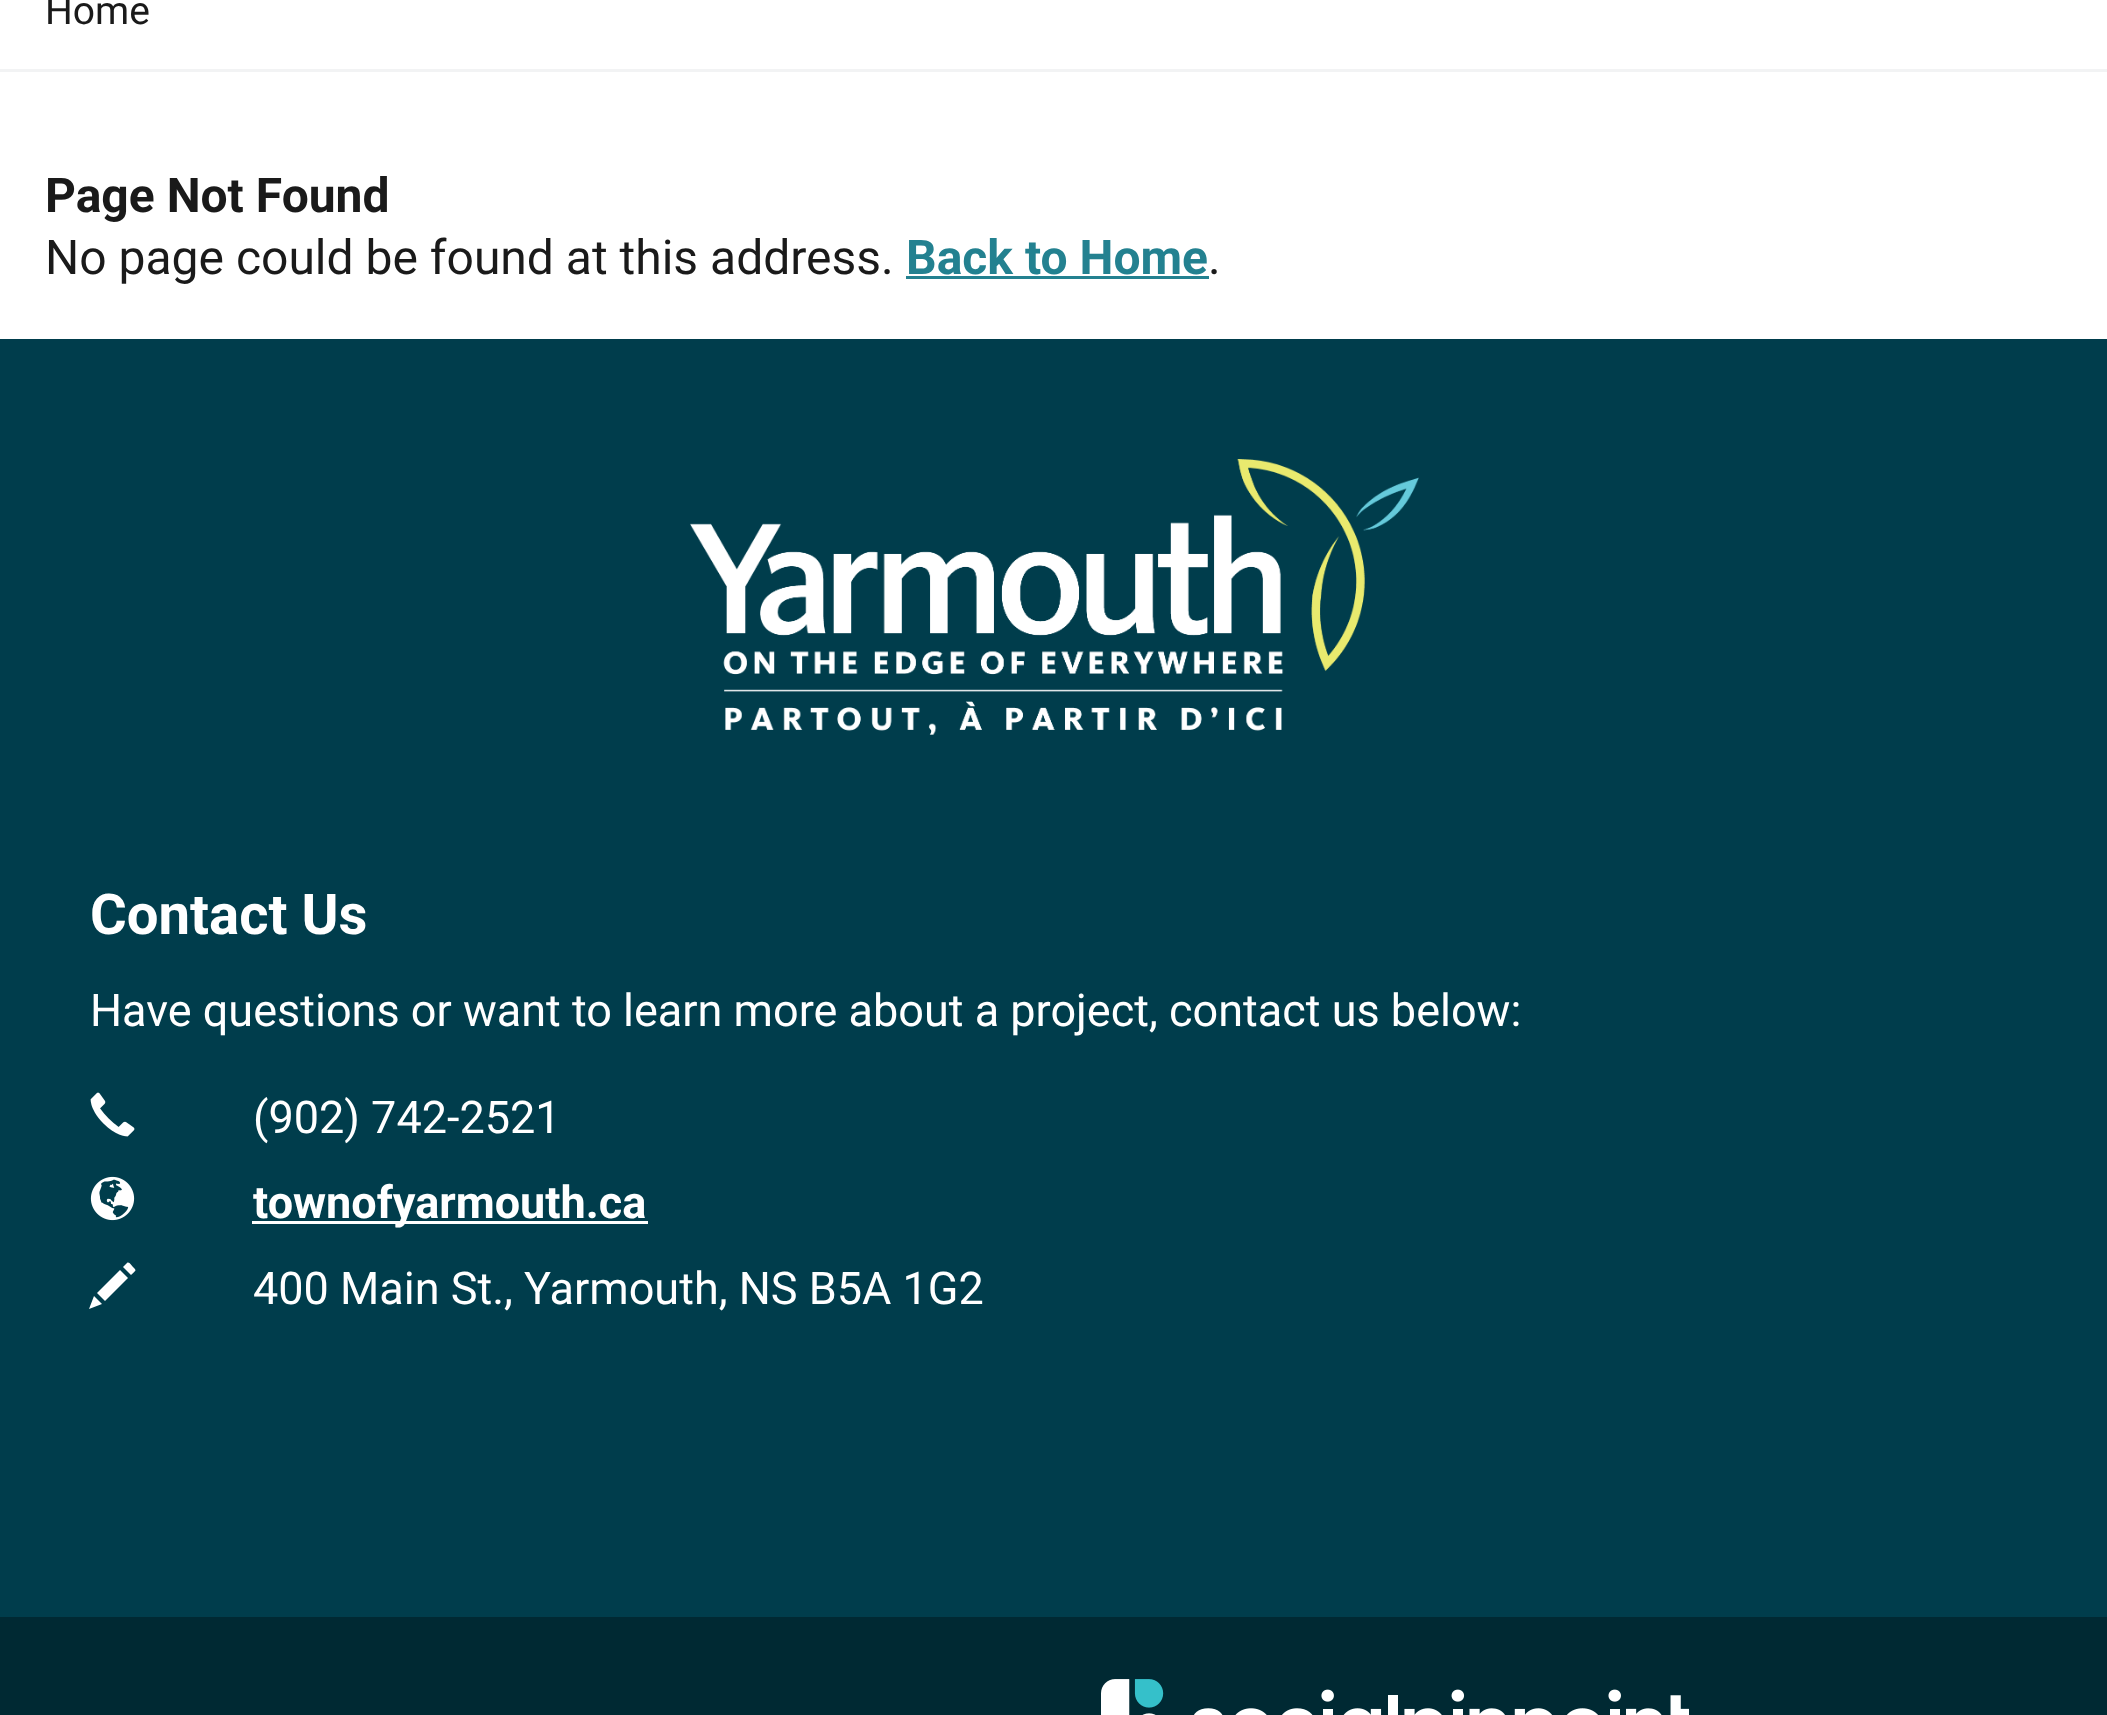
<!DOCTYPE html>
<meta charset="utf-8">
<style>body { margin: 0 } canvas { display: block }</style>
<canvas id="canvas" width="2107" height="1715"></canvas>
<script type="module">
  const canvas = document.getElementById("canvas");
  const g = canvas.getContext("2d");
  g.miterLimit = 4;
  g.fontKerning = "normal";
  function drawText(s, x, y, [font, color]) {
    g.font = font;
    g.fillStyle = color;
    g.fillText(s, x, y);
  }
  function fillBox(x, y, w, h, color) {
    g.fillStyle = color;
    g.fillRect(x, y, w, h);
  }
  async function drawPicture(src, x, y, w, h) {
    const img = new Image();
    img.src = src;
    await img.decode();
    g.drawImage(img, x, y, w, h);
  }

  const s1 = ["39px Roboto", "#1A1A1A"];
  const s2 = ["bold 48px Roboto", "#1A1A1A"];
  const s3 = ["48px Roboto", "#1A1A1A"];
  const s4 = ["bold 48px Roboto", "#238190"];
  const s5 = ["bold 56.25px Roboto", "#FFFFFF"];
  const s6 = ["45px Roboto", "#FFFFFF"];
  const s7 = ["bold 45px Roboto", "#FFFFFF"];

  fillBox(0, 0, 2107, 1715, "#FFFFFF");
  fillBox(0, 69, 2107, 3, "#F2F3F4");
  drawText("Home", 45, 24, s1);
  drawText("Page Not Found", 45, 212, s2);
  drawText("No page could be found at this address.", 45, 274, s3);
  drawText("Back to Home", 906, 274, s4);
  fillBox(906, 276, 303, 3, "#238190");
  drawText(".", 1208, 274, s3);
  fillBox(0, 339, 2107, 1278, "#003D4C");
  await drawPicture("pic1.png", 690, 459, 729, 276);
  drawText("Contact Us", 90, 934, s5);
  drawText("Have questions or want to learn more about a project, contact us below:", 90, 1026, s6);
  await drawPicture("pic2.png", 90, 1092, 45, 45);
  drawText("(902) 742-2521", 253, 1133, s6);
  await drawPicture("pic3.png", 90, 1176, 45, 45);
  fillBox(252, 1221, 396, 3, "#FFFFFF");
  drawText("townofyarmouth.ca", 253, 1218, s7);
  g.beginPath();
  g.moveTo(127, 1263);
  g.bezierCurveTo(129, 1261, 132, 1266, 133, 1267);
  g.bezierCurveTo(137, 1271, 136, 1270, 131, 1275);
  g.lineTo(123, 1267);
  g.closePath();
  g.moveTo(128, 1278);
  g.lineTo(105, 1301);
  g.lineTo(97, 1293);
  g.lineTo(120, 1270);
  g.closePath();
  g.moveTo(102, 1304);
  g.lineTo(89, 1309);
  g.lineTo(94, 1296);
  g.closePath();
  g.fill();
  drawText("400 Main St., Yarmouth, NS B5A 1G2", 253, 1304, s6);
  fillBox(0, 1617, 2107, 98, "#002933");
  await drawPicture("pic4.png", 1101, 1679, 588, 36);
</script>
